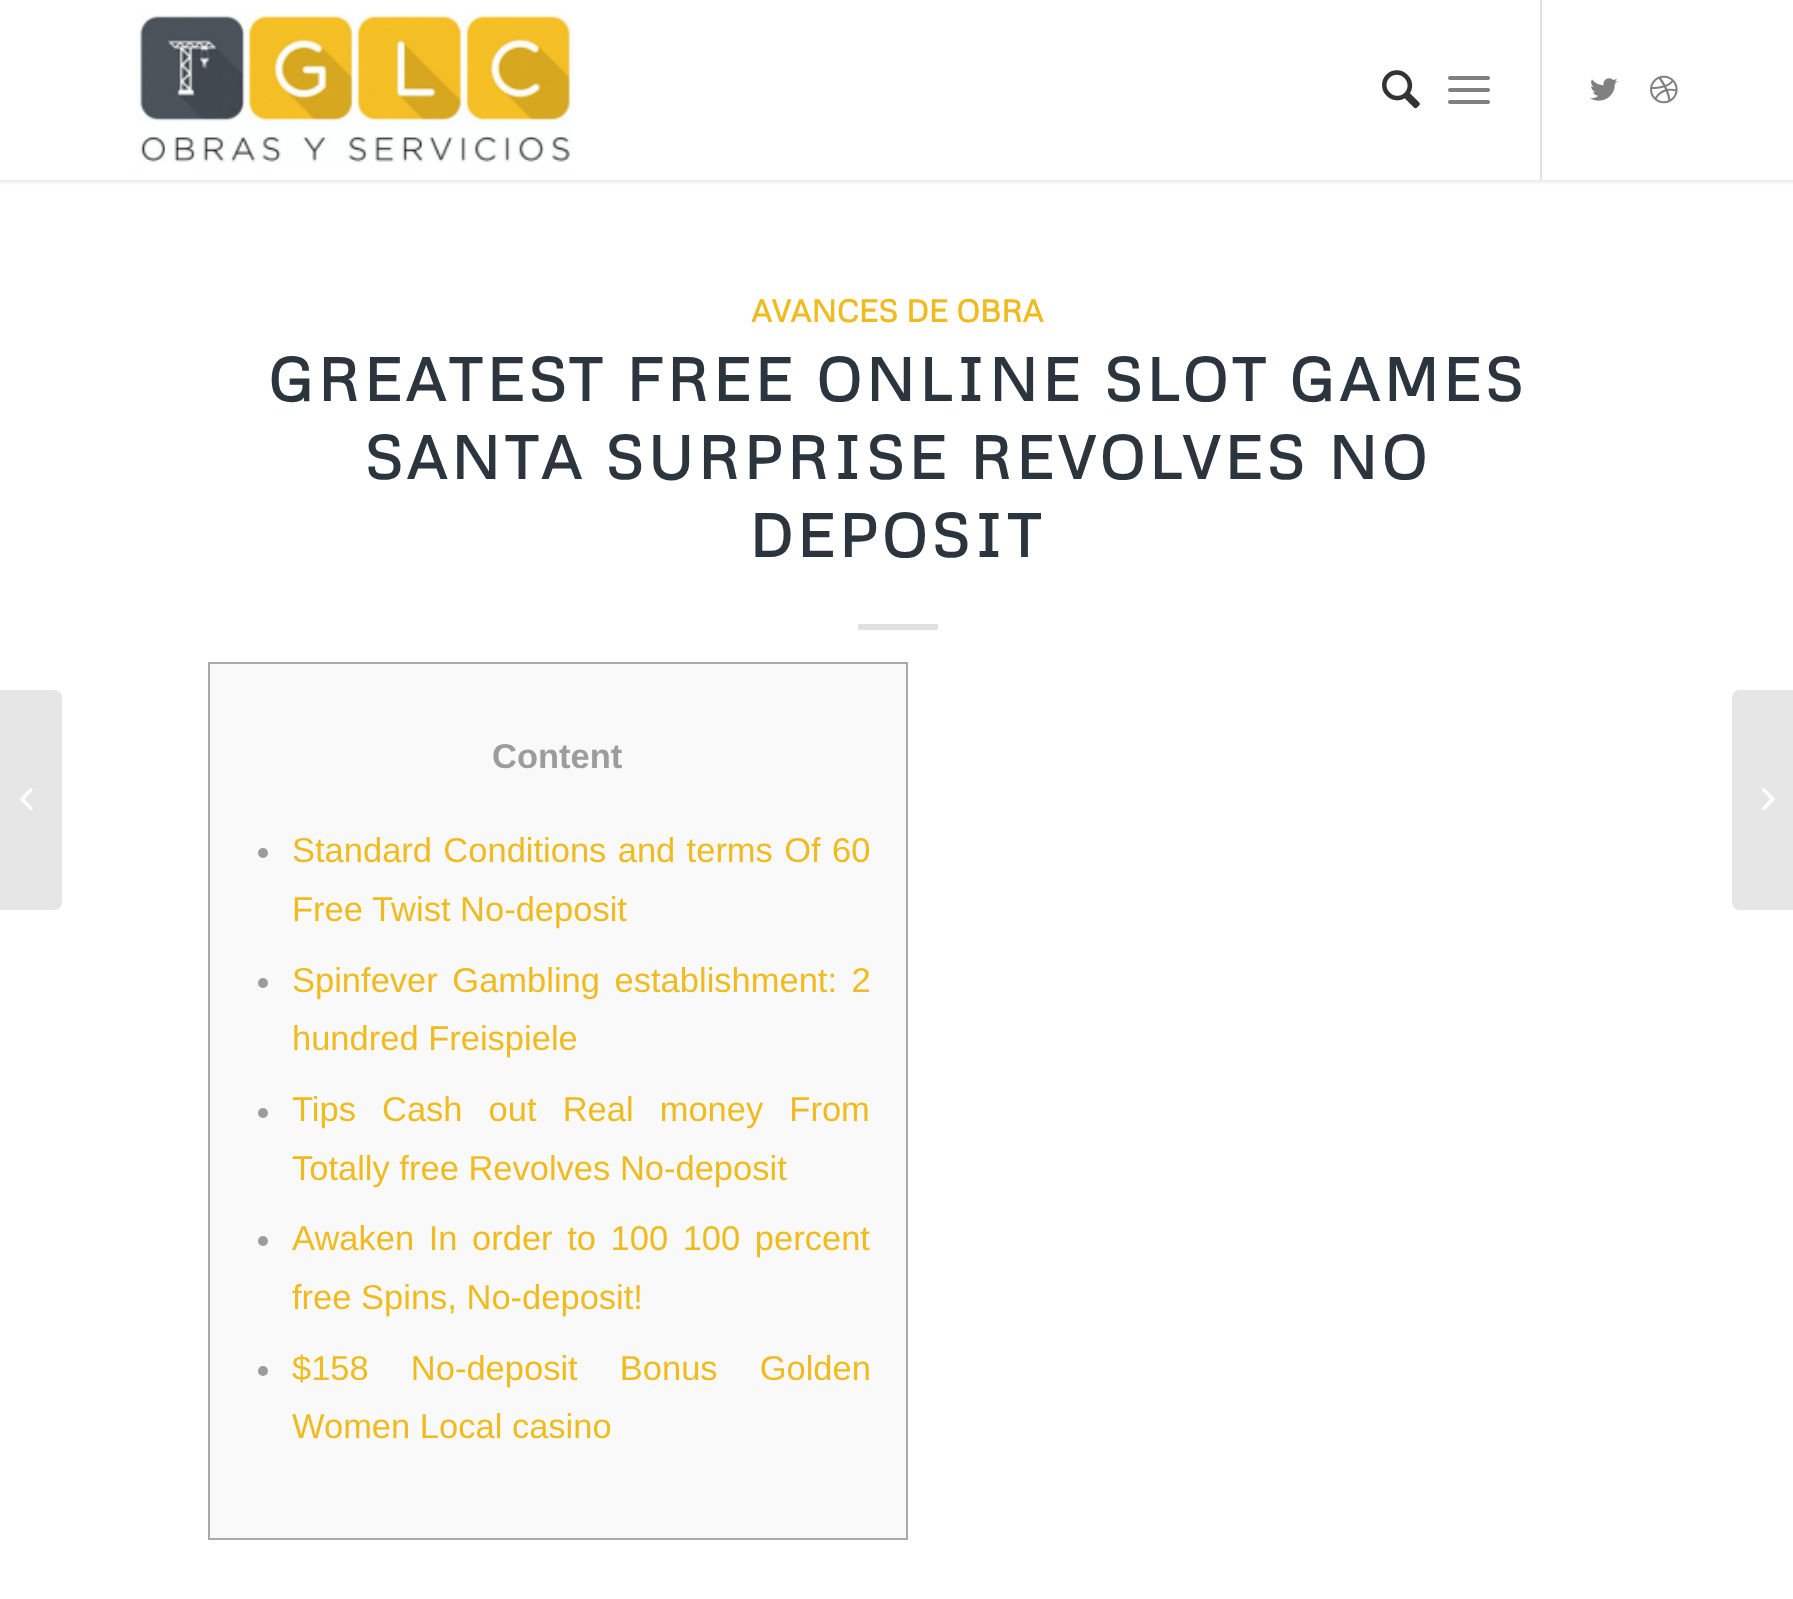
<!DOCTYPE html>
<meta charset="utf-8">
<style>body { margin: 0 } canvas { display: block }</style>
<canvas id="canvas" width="1793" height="1599"></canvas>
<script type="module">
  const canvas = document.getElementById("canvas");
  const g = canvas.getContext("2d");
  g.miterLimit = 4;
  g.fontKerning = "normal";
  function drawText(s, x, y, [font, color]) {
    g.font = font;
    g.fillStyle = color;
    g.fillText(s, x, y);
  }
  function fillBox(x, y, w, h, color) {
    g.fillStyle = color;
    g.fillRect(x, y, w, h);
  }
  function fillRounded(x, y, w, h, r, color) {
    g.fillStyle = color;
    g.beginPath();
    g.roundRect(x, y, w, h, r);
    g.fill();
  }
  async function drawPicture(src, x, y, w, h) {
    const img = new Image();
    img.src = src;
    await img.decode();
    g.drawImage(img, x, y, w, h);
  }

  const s1 = ["bold 31px Metrophobic", "#EFBB20"];
  const s2 = ["bold 60px Metrophobic", "#2C353D"];
  const s3 = ["bold 34.5px Liberation Sans", "#9C9C9C"];
  const s4 = ["34.5px Liberation Sans", "#EFBB20"];

  fillBox(0, 0, 1793, 1599, "#FFFFFF");
  g.fillStyle = "rgba(0, 0, 0, 0.1)";
  g.filter = "blur(2px)";
  g.beginPath();
  g.rect(-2, -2, 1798, 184);
  g.fill();
  g.filter = "none";
  fillBox(0, 0, 1793, 180, "#FFFFFF");
  await drawPicture("pic1.png", 136, 14, 438, 150);
  fillBox(1540, 0, 2, 180, "#E1E1E1");
  await drawPicture("pic2.png", 1382, 70, 38, 39);
  fillRounded(1448, 88, 42, 4, 2, "#808080");
  fillRounded(1448, 76, 42, 4, 2, "#808080");
  fillRounded(1448, 100, 42, 4, 2, "#808080");
  await drawPicture("pic3.png", 1590, 78, 28, 23);
  await drawPicture("pic4.png", 1650, 75, 28, 29);
  g.fillStyle = "#E6E6E6";
  g.beginPath();
  g.roundRect(0, 690, 62, 220, [0, 8, 8, 0]);
  g.fill();
  await drawPicture("pic5.png", 20, 788, 13, 22);
  drawText("AVANCES DE OBRA", 751, 322, s1);
  g.letterSpacing = "4px";
  drawText("GREATEST FREE ONLINE SLOT GAMES", 268, 401, s2);
  drawText("SANTA SURPRISE REVOLVES NO", 364, 479, s2);
  drawText("DEPOSIT", 749, 557, s2);
  fillBox(858, 624, 80, 6, "#E1E1E1");
  g.fillStyle = "#F9F9F9";
  g.beginPath();
  g.rect(209, 663, 698, 876);
  g.fill();
  g.strokeStyle = "#AAAAAA";
  g.lineWidth = 2;
  g.stroke();
  g.letterSpacing = "0px";
  drawText("Content", 492, 768, s3);
  g.beginPath();
  g.arc(263, 853, 5, 0, Math.PI * 2);
  g.fill();
  g.wordSpacing = "1.75px";
  drawText("Standard Conditions and terms Of 60", 292, 862, s4);
  g.wordSpacing = "0px";
  drawText("Free Twist No-deposit", 292, 921, s4);
  g.fillStyle = "#9C9C9C";
  g.beginPath();
  g.arc(263, 983, 5, 0, Math.PI * 2);
  g.fill();
  g.wordSpacing = "5px";
  drawText("Spinfever Gambling establishment: 2", 292, 992, s4);
  g.wordSpacing = "0px";
  drawText("hundred Freispiele", 292, 1050, s4);
  g.fillStyle = "#9C9C9C";
  g.beginPath();
  g.arc(263, 1113, 5, 0, Math.PI * 2);
  g.fill();
  g.wordSpacing = "16.5px";
  drawText("Tips Cash out Real money From", 292, 1121, s4);
  g.wordSpacing = "0px";
  drawText("Totally free Revolves No-deposit", 292, 1180, s4);
  g.fillStyle = "#9C9C9C";
  g.beginPath();
  g.arc(263, 1241, 5, 0, Math.PI * 2);
  g.fill();
  g.wordSpacing = "5px";
  drawText("Awaken In order to 100 100 percent", 292, 1250, s4);
  g.wordSpacing = "0px";
  drawText("free Spins, No-deposit!", 292, 1309, s4);
  g.fillStyle = "#9C9C9C";
  g.beginPath();
  g.arc(263, 1371, 5, 0, Math.PI * 2);
  g.fill();
  g.wordSpacing = "32.5px";
  drawText("$158 No-deposit Bonus Golden", 292, 1380, s4);
  g.wordSpacing = "0px";
  drawText("Women Local casino", 292, 1438, s4);
  g.fillStyle = "#E6E6E6";
  g.beginPath();
  g.moveTo(1740, 690);
  g.lineTo(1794, 690);
  g.lineTo(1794, 910);
  g.lineTo(1740, 910);
  g.bezierCurveTo(1735.5, 910, 1732, 906.5, 1732, 902);
  g.lineTo(1732, 698);
  g.bezierCurveTo(1732, 693.5, 1735.5, 690, 1740, 690);
  g.closePath();
  g.fill();
  await drawPicture("pic6.png", 1762, 788, 13, 23);
</script>
